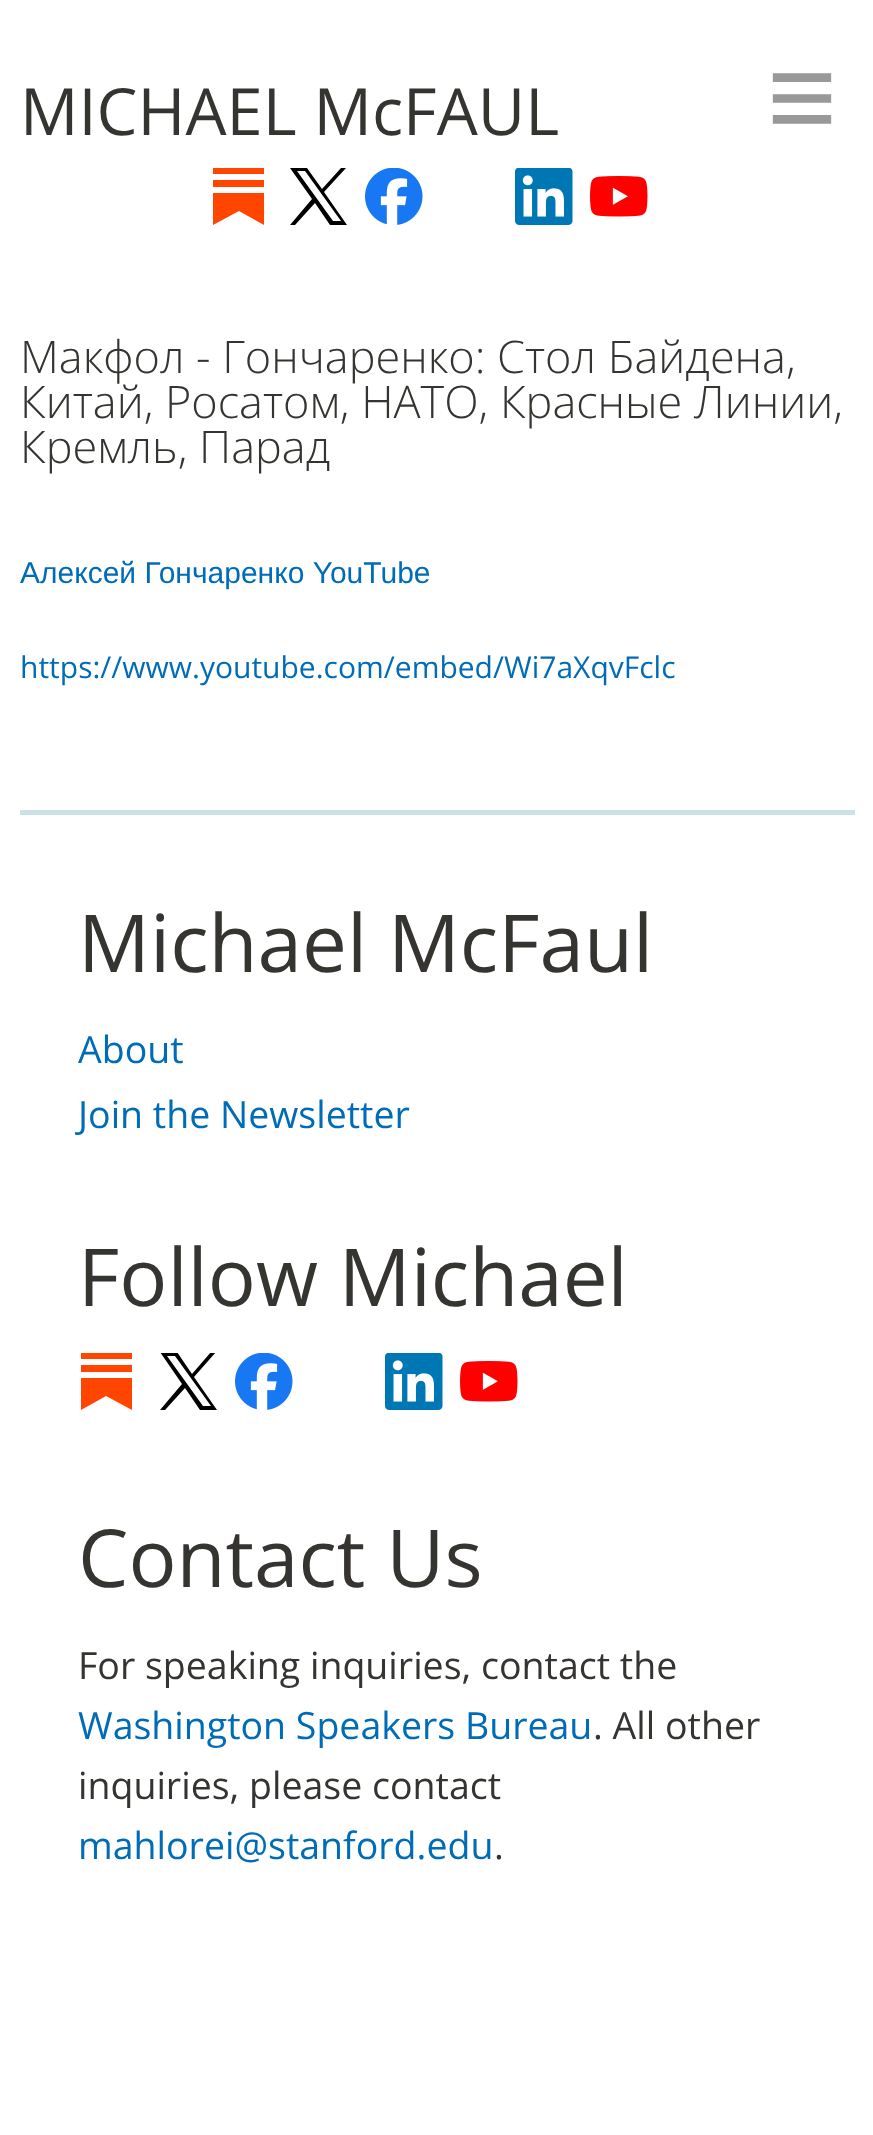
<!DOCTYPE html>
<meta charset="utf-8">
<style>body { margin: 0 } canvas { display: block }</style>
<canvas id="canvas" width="873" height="2135"></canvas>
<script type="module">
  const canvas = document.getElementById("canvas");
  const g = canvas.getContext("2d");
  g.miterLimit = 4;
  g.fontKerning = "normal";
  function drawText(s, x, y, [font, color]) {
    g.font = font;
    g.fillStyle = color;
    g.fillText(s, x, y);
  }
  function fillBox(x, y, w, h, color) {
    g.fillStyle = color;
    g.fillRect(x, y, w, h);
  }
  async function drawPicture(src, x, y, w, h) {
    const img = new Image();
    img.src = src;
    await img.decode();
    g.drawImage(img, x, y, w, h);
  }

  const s1 = ["65px Open Sans", "#353431"];
  const s2 = ["120px Liberation Sans", "#999999"];
  const s3 = ["300 45px Open Sans", "#353431"];
  const s4 = ["30px Liberation Sans", "#006CB8"];
  const s5 = ["30px Open Sans", "#006CB8"];
  const s6 = ["80px Open Sans", "#353431"];
  const s7 = ["37.5px Open Sans", "#006CB8"];
  const s8 = ["37.5px Open Sans", "#353431"];

  fillBox(0, 0, 873, 2135, "#FFFFFF");
  drawText("MICHAEL McFAUL", 20, 135, s1);
  g.fillStyle = "#FF4500";
  g.beginPath();
  g.moveTo(264, 187);
  g.lineTo(213, 187);
  g.lineTo(213, 180);
  g.lineTo(264, 180);
  g.closePath();
  g.moveTo(213, 193);
  g.lineTo(213, 225);
  g.lineTo(239, 211);
  g.lineTo(264, 225);
  g.lineTo(264, 193);
  g.closePath();
  g.moveTo(264, 168);
  g.lineTo(213, 168);
  g.lineTo(213, 174);
  g.lineTo(264, 174);
  g.closePath();
  g.fill();
  g.fillStyle = "#000000";
  g.beginPath();
  g.moveTo(324, 192);
  g.lineTo(346, 168);
  g.lineTo(341, 168);
  g.lineTo(322, 189);
  g.lineTo(307, 168);
  g.lineTo(290, 168);
  g.lineTo(312, 199);
  g.lineTo(290, 225);
  g.lineTo(295, 225);
  g.lineTo(315, 203);
  g.lineTo(330, 225);
  g.lineTo(347, 225);
  g.moveTo(297, 171);
  g.lineTo(305, 171);
  g.lineTo(341, 221);
  g.lineTo(333, 221);
  g.fill();
  await drawPicture("pic1.png", 365, 168, 58, 57);
  await drawPicture("pic2.png", 515, 168, 58, 57);
  await drawPicture("pic3.png", 590, 176, 58, 41);
  drawText("≡", 767, 138, s2);
  drawText("Макфол - Гончаренко: Стол Байдена,", 20, 373, s3);
  drawText("Китай, Росатом, НАТО, Красные Линии,", 20, 418, s3);
  drawText("Кремль, Парад", 20, 463, s3);
  drawText("Алексей Гончаренко YouTube", 20, 583, s4);
  drawText("https://www.youtube.com/embed/Wi7aXqvFclc", 20, 678, s5);
  fillBox(20, 810, 835, 5, "#CCE1E6");
  drawText("Michael McFaul", 78, 972, s6);
  drawText("About", 78, 1063, s7);
  drawText("Join the Newsletter", 78, 1128, s7);
  drawText("Follow Michael", 78, 1306, s6);
  g.save();
  g.beginPath();
  g.rect(78, 1353, 57, 57);
  g.clip();
  g.fillStyle = "#FF4500";
  g.beginPath();
  g.moveTo(131, 1372);
  g.lineTo(81, 1372);
  g.lineTo(81, 1365);
  g.lineTo(132, 1365);
  g.lineTo(132, 1372);
  g.closePath();
  g.moveTo(81, 1378);
  g.lineTo(81, 1410);
  g.lineTo(106, 1396);
  g.lineTo(132, 1410);
  g.lineTo(132, 1378);
  g.closePath();
  g.moveTo(132, 1352);
  g.lineTo(81, 1352);
  g.lineTo(81, 1359);
  g.lineTo(132, 1359);
  g.closePath();
  g.fill();
  g.restore();
  g.save();
  g.beginPath();
  g.rect(160, 1353, 58, 57);
  g.clip();
  g.fillStyle = "#000000";
  g.beginPath();
  g.moveTo(194, 1377);
  g.lineTo(216, 1352);
  g.lineTo(211, 1352);
  g.lineTo(192, 1374);
  g.lineTo(177, 1352);
  g.lineTo(160, 1352);
  g.lineTo(182, 1384);
  g.lineTo(160, 1410);
  g.lineTo(165, 1410);
  g.lineTo(185, 1388);
  g.lineTo(200, 1410);
  g.lineTo(217, 1410);
  g.moveTo(167, 1356);
  g.lineTo(175, 1356);
  g.lineTo(211, 1406);
  g.lineTo(203, 1406);
  g.fill();
  g.restore();
  await drawPicture("pic1.png", 235, 1353, 58, 57);
  await drawPicture("pic2.png", 385, 1353, 58, 57);
  await drawPicture("pic3.png", 460, 1361, 58, 41);
  drawText("Contact Us", 78, 1587, s6);
  drawText("For speaking inquiries, contact the", 78, 1679, s8);
  drawText("Washington Speakers Bureau", 78, 1739, s7);
  drawText(". All other", 593, 1739, s8);
  drawText("inquiries, please contact", 78, 1799, s8);
  drawText("mahlorei@stanford.edu", 78, 1859, s7);
  drawText(".", 494, 1859, s8);
</script>
